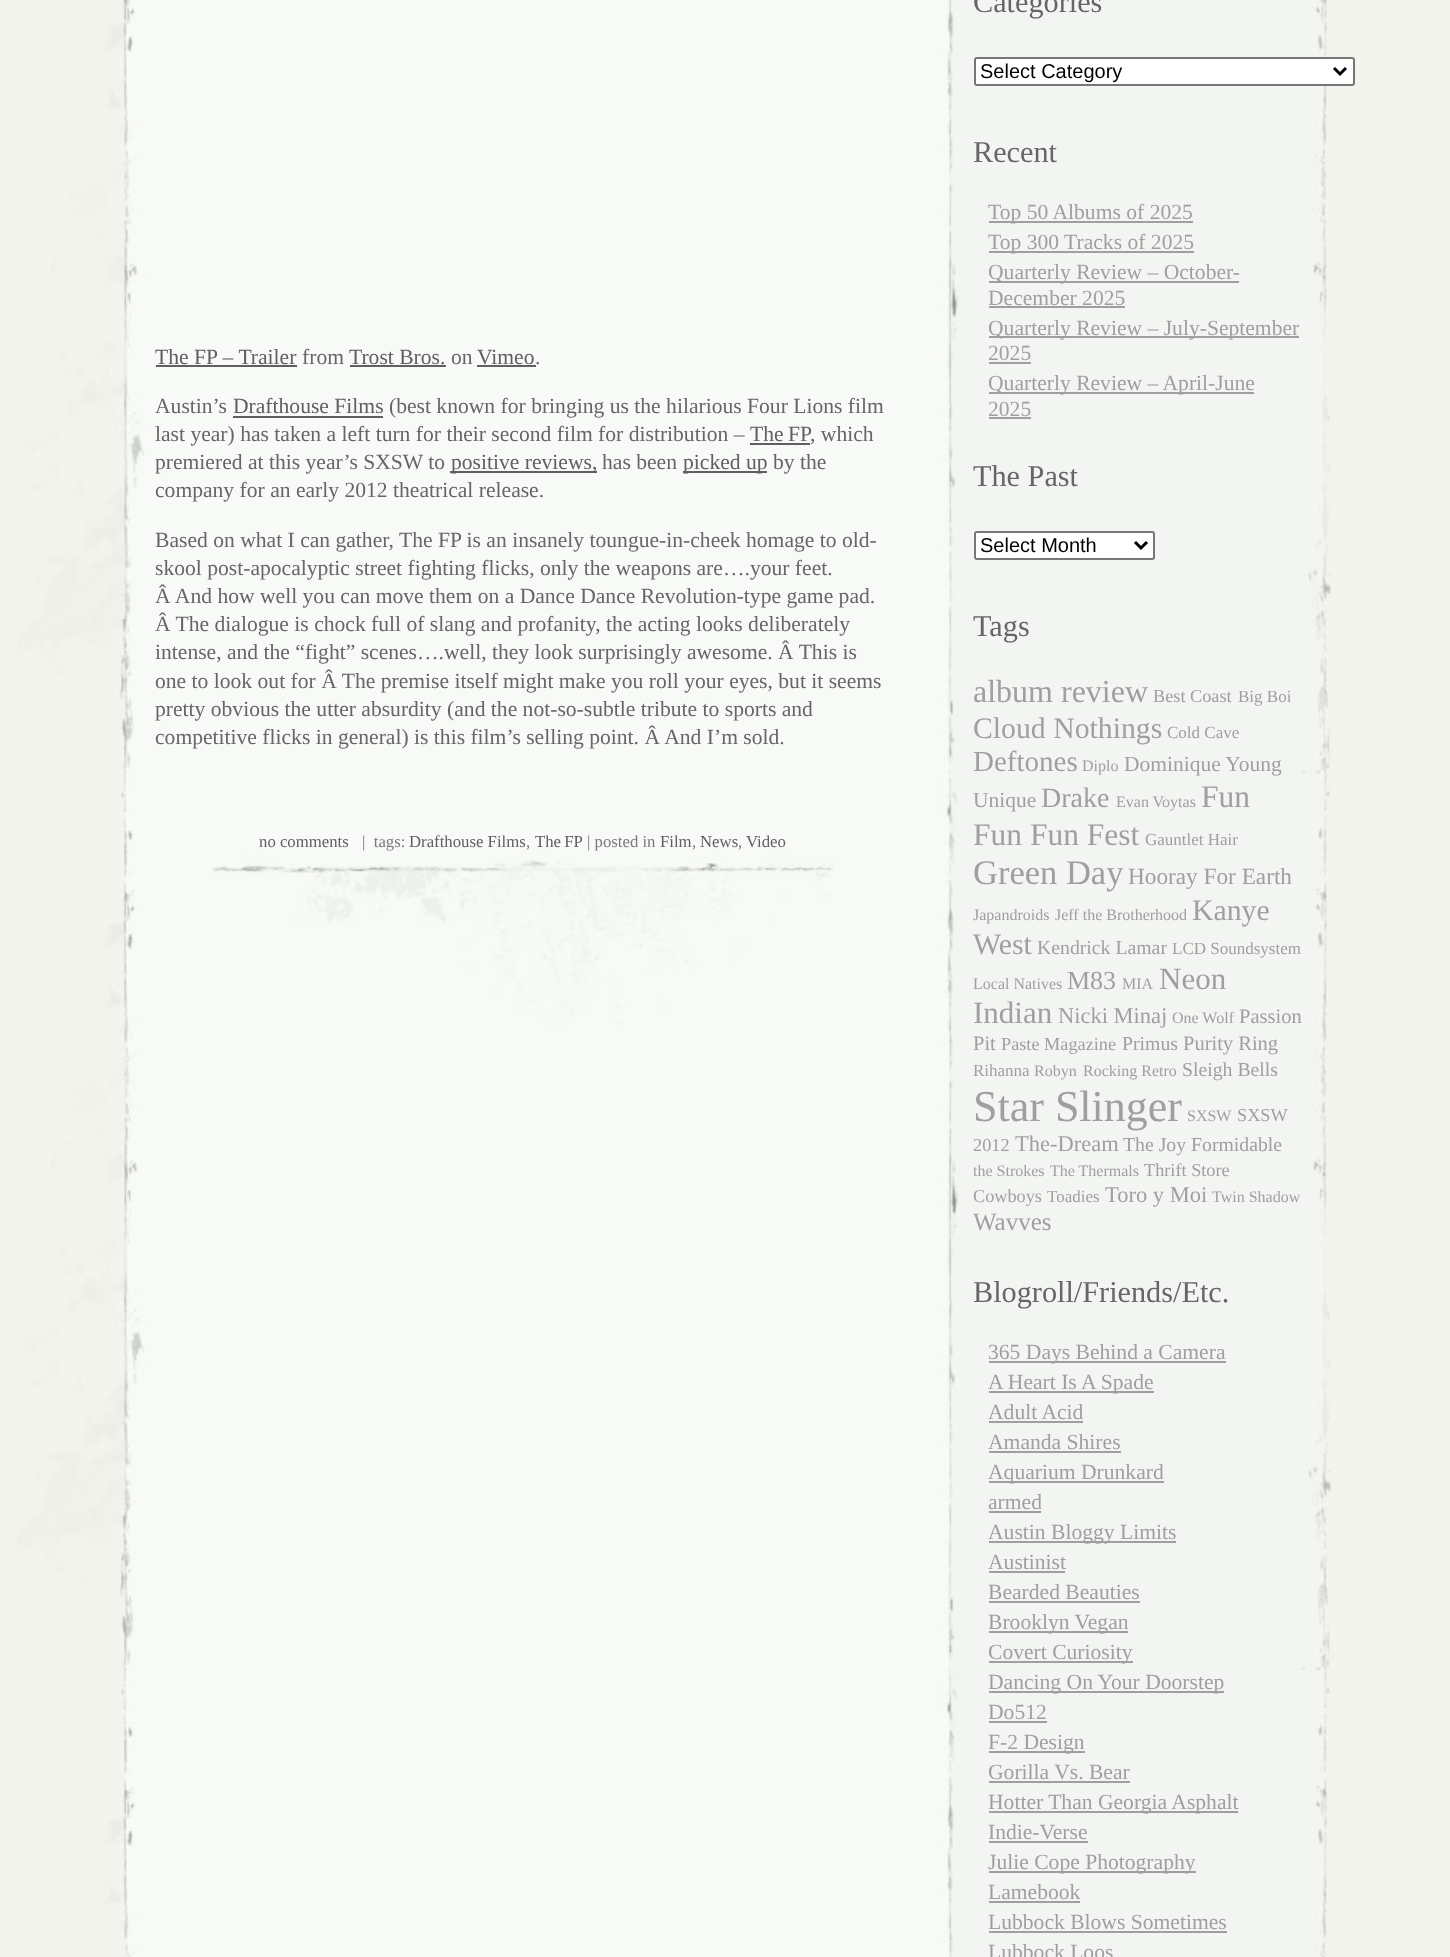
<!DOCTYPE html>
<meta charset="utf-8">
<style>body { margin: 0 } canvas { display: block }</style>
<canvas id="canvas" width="1450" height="1957"></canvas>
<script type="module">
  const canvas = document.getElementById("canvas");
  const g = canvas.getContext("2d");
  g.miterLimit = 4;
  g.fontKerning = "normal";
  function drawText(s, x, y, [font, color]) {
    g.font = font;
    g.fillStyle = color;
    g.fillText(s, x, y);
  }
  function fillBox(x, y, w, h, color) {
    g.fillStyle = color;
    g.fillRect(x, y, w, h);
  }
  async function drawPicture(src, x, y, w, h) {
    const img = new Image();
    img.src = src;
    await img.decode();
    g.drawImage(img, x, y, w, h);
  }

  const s1 = ["21.6px Liberation Serif", "#5F5F5F"];
  const s2 = ["21.6px Liberation Serif", "#666666"];
  const s3 = ["16.75px Liberation Serif", "#5F5F5F"];
  const s4 = ["16.75px Liberation Serif", "#797979"];
  const s5 = ["30.25px Liberation Serif", "#666666"];
  const s6 = ["20px Liberation Sans", "#000000"];
  const s7 = ["21.6px Liberation Serif", "#9F9F9F"];
  const s8 = ["32px Liberation Serif", "#9F9F9F"];
  const s9 = ["18.25px Liberation Serif", "#9F9F9F"];
  const s10 = ["17px Liberation Serif", "#9F9F9F"];
  const s11 = ["29.75px Liberation Serif", "#9F9F9F"];
  const s12 = ["29px Liberation Serif", "#9F9F9F"];
  const s13 = ["16px Liberation Serif", "#9F9F9F"];
  const s14 = ["21.5px Liberation Serif", "#9F9F9F"];
  const s15 = ["28px Liberation Serif", "#9F9F9F"];
  const s16 = ["31.5px Liberation Serif", "#9F9F9F"];
  const s17 = ["34.5px Liberation Serif", "#9F9F9F"];
  const s18 = ["23.25px Liberation Serif", "#9F9F9F"];
  const s19 = ["19.75px Liberation Serif", "#9F9F9F"];
  const s20 = ["26px Liberation Serif", "#9F9F9F"];
  const s21 = ["31px Liberation Serif", "#9F9F9F"];
  const s22 = ["22.5px Liberation Serif", "#9F9F9F"];
  const s23 = ["20.5px Liberation Serif", "#9F9F9F"];
  const s24 = ["44px Liberation Serif", "#9F9F9F"];
  const s25 = ["25px Liberation Serif", "#9F9F9F"];

  fillBox(0, 0, 1450, 1957, "#F3F4EE");
  await drawPicture("pic1.png", 17, 0, 1314, 1957);
  drawText("The FP – Trailer", 155, 364, s1);
  fillBox(156, 365, 141, 2, "#5F5F5F");
  drawText("from", 302, 364, s2);
  drawText("Trost Bros.", 349, 364, s1);
  fillBox(350, 365, 96, 2, "#5F5F5F");
  drawText("on", 451, 364, s2);
  drawText("Vimeo", 477, 364, s1);
  fillBox(477, 365, 59, 2, "#5F5F5F");
  drawText(".", 535, 364, s2);
  drawText("Austin’s", 155, 413, s2);
  drawText("Drafthouse Films", 233, 413, s1);
  fillBox(233, 416, 150, 2, "#5F5F5F");
  drawText("(best known for bringing us the hilarious Four Lions film", 389, 413, s2);
  drawText("last year) has taken a left turn for their second film for distribution –", 155, 441, s2);
  g.wordSpacing = "-1px";
  drawText("The FP", 750, 441, s1);
  fillBox(750, 443, 60, 2, "#5F5F5F");
  g.wordSpacing = "0px";
  drawText(", which", 810, 441, s2);
  drawText("premiered at this year’s SXSW to", 155, 469, s2);
  fillBox(450, 471, 147, 2, "#5F5F5F");
  drawText("positive reviews,", 451, 469, s1);
  drawText("has been", 602, 469, s2);
  fillBox(683, 471, 84, 2, "#5F5F5F");
  drawText("picked up", 683, 469, s1);
  drawText("by the", 773, 469, s2);
  drawText("company for an early 2012 theatrical release.", 155, 497, s2);
  drawText("Based on what I can gather, The FP is an insanely toungue-in-cheek homage to old-", 155, 547, s2);
  drawText("skool post-apocalyptic street fighting flicks, only the weapons are….your feet.", 155, 575, s2);
  drawText("Â And how well you can move them on a Dance Dance Revolution-type game pad.", 155, 603, s2);
  drawText("Â The dialogue is chock full of slang and profanity, the acting looks deliberately", 155, 631, s2);
  drawText("intense, and the “fight” scenes….well, they look surprisingly awesome. Â This is", 155, 659, s2);
  drawText("one to look out for Â The premise itself might make you roll your eyes, but it seems", 155, 688, s2);
  drawText("pretty obvious the utter absurdity (and the not-so-subtle tribute to sports and", 155, 716, s2);
  drawText("competitive flicks in general) is this film’s selling point. Â And I’m sold.", 155, 744, s2);
  drawText("no comments", 259, 847, s3);
  drawText("|  tags:", 362, 847, s4);
  drawText("Drafthouse Films", 409, 847, s3);
  drawText(",", 526, 847, s4);
  g.wordSpacing = "-1px";
  drawText("The FP", 535, 847, s3);
  g.wordSpacing = "0px";
  drawText("| posted in", 587, 847, s4);
  drawText("Film", 660, 847, s3);
  drawText(",", 692, 847, s4);
  drawText("News", 700, 847, s3);
  drawText(",", 738, 847, s4);
  drawText("Video", 746, 847, s3);
  await drawPicture("pic2.png", 212, 854, 622, 171);
  drawText("Categories", 973, 12, s5);
  g.fillStyle = "#FFFFFF";
  g.beginPath();
  g.roundRect(975, 58, 379, 27, 2);
  g.fill();
  g.strokeStyle = "#767676";
  g.lineWidth = 2;
  g.stroke();
  g.beginPath();
  g.moveTo(1334, 68);
  g.lineTo(1340, 74);
  g.lineTo(1346, 68);
  g.strokeStyle = "#000000";
  g.lineWidth = 3;
  g.stroke();
  drawText("Select Category", 980, 78, s6);
  drawText("Recent", 973, 162, s5);
  fillBox(989, 221, 204, 2, "#9F9F9F");
  drawText("Top 50 Albums of 2025", 988, 219, s7);
  fillBox(989, 251, 205, 2, "#9F9F9F");
  drawText("Top 300 Tracks of 2025", 988, 249, s7);
  fillBox(989, 281, 250, 2, "#9F9F9F");
  drawText("Quarterly Review – October-", 988, 279, s7);
  drawText("December 2025", 988, 305, s7);
  fillBox(989, 306, 136, 2, "#9F9F9F");
  fillBox(989, 336, 310, 2, "#9F9F9F");
  drawText("Quarterly Review – July-September", 988, 335, s7);
  drawText("2025", 988, 360, s7);
  fillBox(989, 362, 42, 2, "#9F9F9F");
  fillBox(989, 392, 265, 2, "#9F9F9F");
  drawText("Quarterly Review – April-June", 988, 390, s7);
  drawText("2025", 988, 416, s7);
  fillBox(989, 417, 42, 2, "#9F9F9F");
  drawText("The Past", 973, 486, s5);
  g.fillStyle = "#FFFFFF";
  g.beginPath();
  g.roundRect(975, 532, 179, 27, 2);
  g.fill();
  g.strokeStyle = "#767676";
  g.lineWidth = 2;
  g.stroke();
  g.beginPath();
  g.moveTo(1135, 542);
  g.lineTo(1141, 548);
  g.lineTo(1147, 542);
  g.strokeStyle = "#000000";
  g.lineWidth = 3;
  g.stroke();
  drawText("Select Month", 980, 552, s6);
  drawText("Tags", 973, 636, s5);
  drawText("album review", 973, 702, s8);
  drawText("Best Coast", 1153, 702, s9);
  drawText("Big Boi", 1238, 702, s10);
  drawText("Cloud Nothings", 973, 738, s11);
  drawText("Cold Cave", 1167, 738, s10);
  drawText("Deftones", 973, 771, s12);
  drawText("Diplo", 1082, 771, s13);
  drawText("Dominique Young", 1124, 771, s14);
  drawText("Unique", 973, 807, s14);
  drawText("Drake", 1041, 807, s15);
  drawText("Evan Voytas", 1116, 807, s13);
  drawText("Fun", 1201, 807, s16);
  drawText("Fun Fun Fest", 973, 845, s16);
  drawText("Gauntlet Hair", 1145, 845, s10);
  drawText("Green Day", 973, 884, s17);
  drawText("Hooray For Earth", 1128, 884, s18);
  drawText("Japandroids", 973, 920, s13);
  drawText("Jeff the Brotherhood", 1055, 920, s13);
  drawText("Kanye", 1192, 920, s11);
  drawText("West", 973, 954, s11);
  drawText("Kendrick Lamar", 1037, 954, s19);
  drawText("LCD Soundsystem", 1172, 954, s10);
  drawText("Local Natives", 973, 989, s13);
  drawText("M83", 1067, 989, s20);
  drawText("MIA", 1122, 989, s13);
  drawText("Neon", 1159, 989, s21);
  drawText("Indian", 973, 1023, s21);
  drawText("Nicki Minaj", 1058, 1023, s22);
  drawText("One Wolf", 1172, 1023, s13);
  drawText("Passion", 1239, 1023, s23);
  drawText("Pit", 973, 1050, s23);
  drawText("Paste Magazine", 1001, 1050, s9);
  drawText("Primus", 1122, 1050, s19);
  drawText("Purity Ring", 1183, 1050, s23);
  drawText("Rihanna", 973, 1076, s10);
  drawText("Robyn", 1034, 1076, s13);
  drawText("Rocking Retro", 1083, 1076, s13);
  drawText("Sleigh Bells", 1182, 1076, s19);
  drawText("Star Slinger", 973, 1121, s24);
  drawText("SXSW", 1187, 1121, s13);
  drawText("SXSW", 1237, 1121, s9);
  drawText("2012", 973, 1151, s9);
  drawText("The-Dream", 1015, 1151, s22);
  drawText("The Joy Formidable", 1123, 1151, s19);
  drawText("the Strokes", 973, 1176, s13);
  drawText("The Thermals", 1050, 1176, s13);
  drawText("Thrift Store", 1144, 1176, s9);
  drawText("Cowboys", 973, 1202, s9);
  drawText("Toadies", 1047, 1202, s10);
  drawText("Toro y Moi", 1105, 1202, s22);
  drawText("Twin Shadow", 1212, 1202, s13);
  drawText("Wavves", 973, 1230, s25);
  drawText("Blogroll/Friends/Etc.", 973, 1302, s5);
  fillBox(989, 1361, 237, 2, "#9F9F9F");
  drawText("365 Days Behind a Camera", 988, 1359, s7);
  fillBox(989, 1391, 165, 2, "#9F9F9F");
  drawText("A Heart Is A Spade", 988, 1389, s7);
  drawText("Adult Acid", 988, 1419, s7);
  fillBox(989, 1421, 94, 2, "#9F9F9F");
  drawText("Amanda Shires", 988, 1449, s7);
  fillBox(989, 1451, 132, 2, "#9F9F9F");
  fillBox(989, 1481, 175, 2, "#9F9F9F");
  drawText("Aquarium Drunkard", 988, 1479, s7);
  drawText("armed", 988, 1509, s7);
  fillBox(989, 1511, 52, 2, "#9F9F9F");
  fillBox(989, 1541, 187, 2, "#9F9F9F");
  drawText("Austin Bloggy Limits", 988, 1539, s7);
  drawText("Austinist", 988, 1569, s7);
  fillBox(989, 1571, 76, 2, "#9F9F9F");
  drawText("Bearded Beauties", 988, 1599, s7);
  fillBox(989, 1601, 151, 2, "#9F9F9F");
  fillBox(989, 1631, 139, 2, "#9F9F9F");
  drawText("Brooklyn Vegan", 988, 1629, s7);
  fillBox(989, 1661, 144, 2, "#9F9F9F");
  drawText("Covert Curiosity", 988, 1659, s7);
  fillBox(989, 1691, 235, 2, "#9F9F9F");
  drawText("Dancing On Your Doorstep", 988, 1689, s7);
  drawText("Do512", 988, 1719, s7);
  fillBox(989, 1721, 58, 2, "#9F9F9F");
  fillBox(989, 1751, 96, 2, "#9F9F9F");
  drawText("F-2 Design", 988, 1749, s7);
  drawText("Gorilla Vs. Bear", 988, 1779, s7);
  fillBox(989, 1781, 141, 2, "#9F9F9F");
  fillBox(989, 1811, 249, 2, "#9F9F9F");
  drawText("Hotter Than Georgia Asphalt", 988, 1809, s7);
  drawText("Indie-Verse", 988, 1839, s7);
  fillBox(989, 1841, 99, 2, "#9F9F9F");
  fillBox(989, 1871, 207, 2, "#9F9F9F");
  drawText("Julie Cope Photography", 988, 1869, s7);
  drawText("Lamebook", 988, 1899, s7);
  fillBox(989, 1901, 91, 2, "#9F9F9F");
  drawText("Lubbock Blows Sometimes", 988, 1929, s7);
  fillBox(989, 1931, 238, 2, "#9F9F9F");
  drawText("Lubbock Loos", 988, 1959, s7);
</script>
